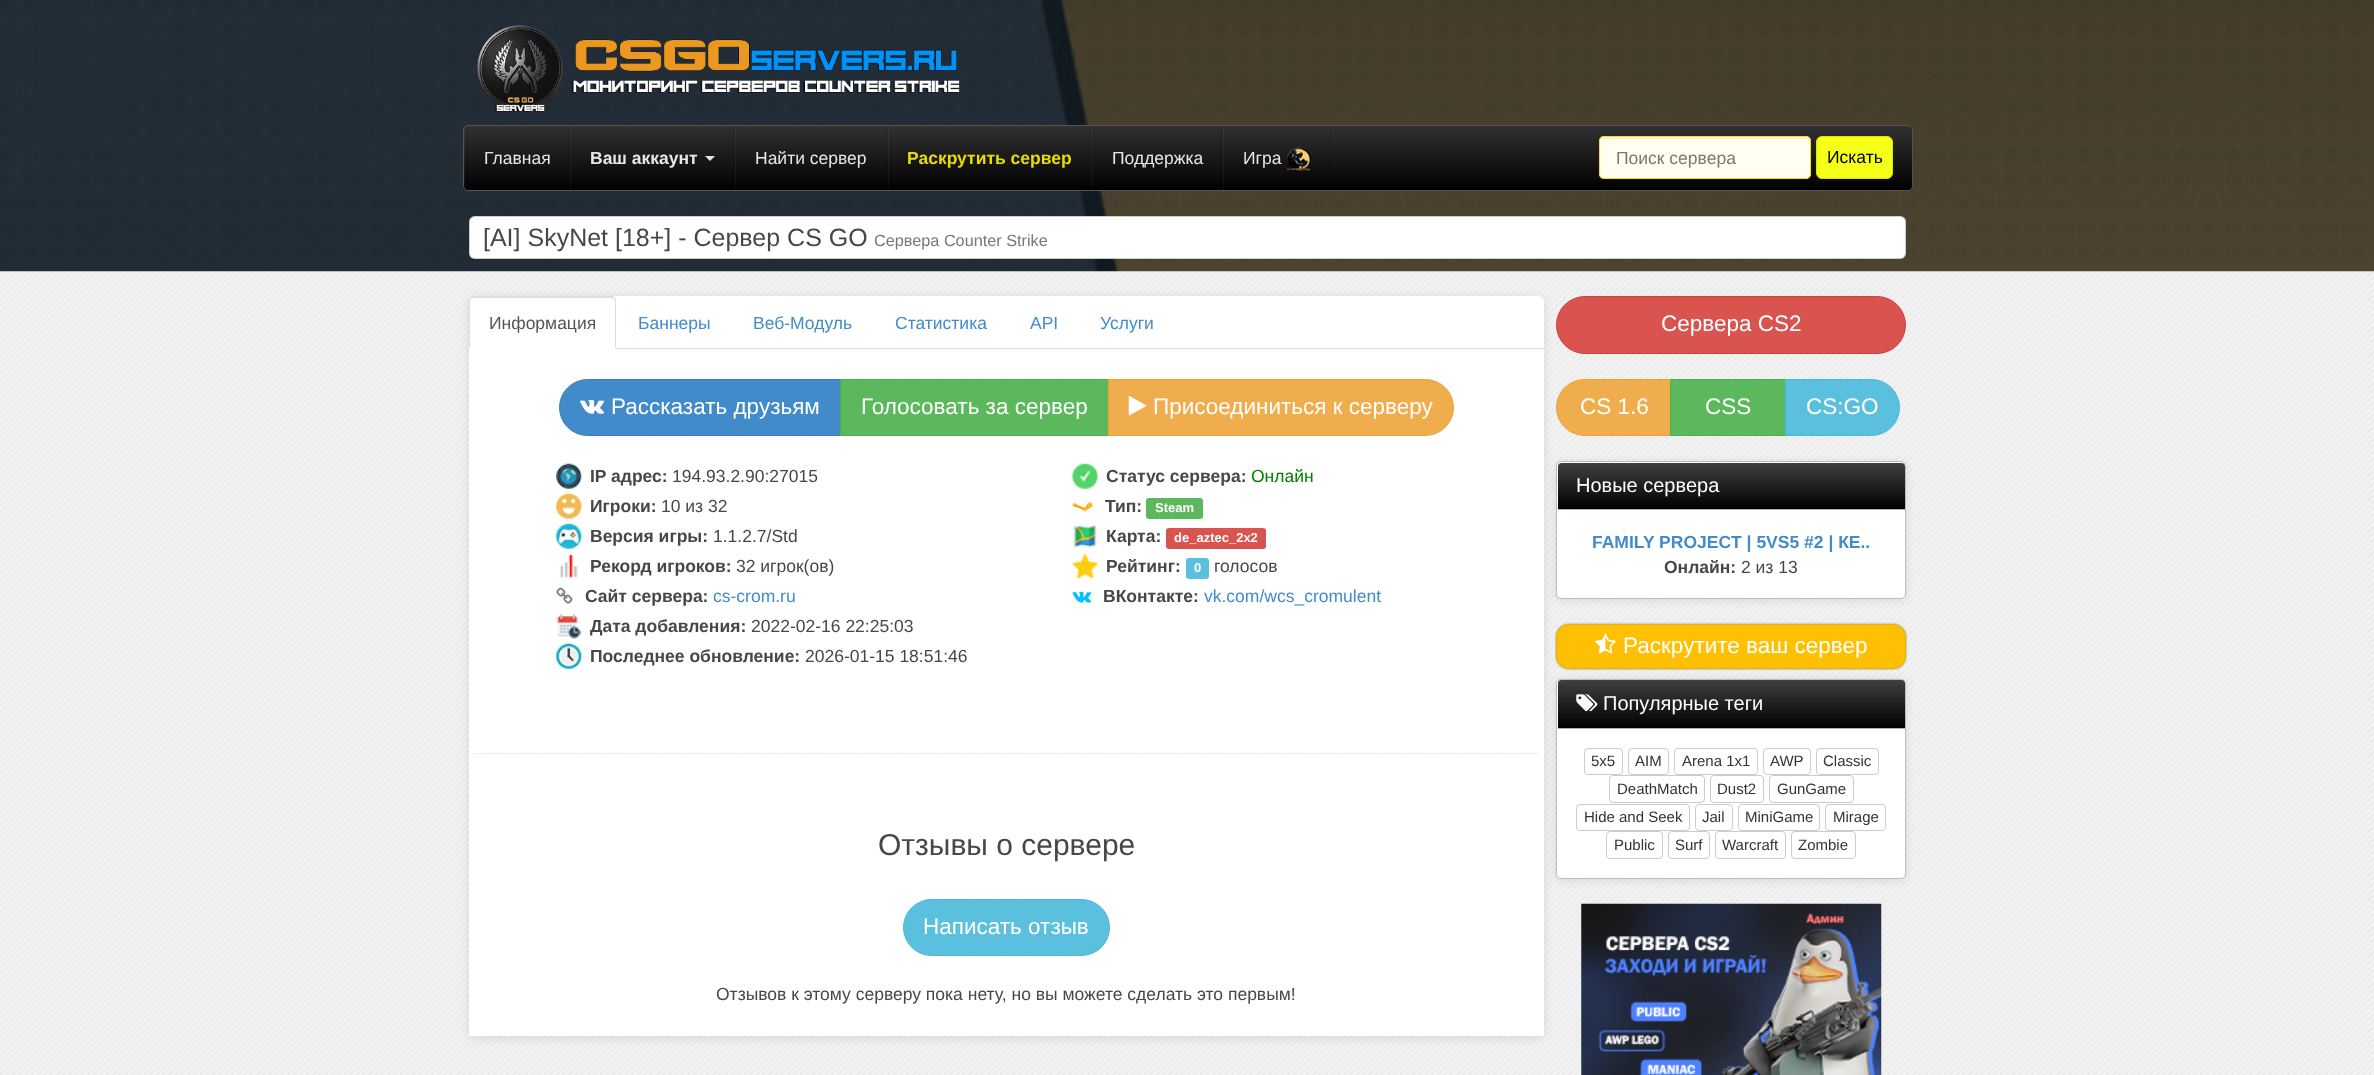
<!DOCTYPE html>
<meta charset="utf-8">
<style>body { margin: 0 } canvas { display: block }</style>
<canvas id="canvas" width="2374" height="1075"></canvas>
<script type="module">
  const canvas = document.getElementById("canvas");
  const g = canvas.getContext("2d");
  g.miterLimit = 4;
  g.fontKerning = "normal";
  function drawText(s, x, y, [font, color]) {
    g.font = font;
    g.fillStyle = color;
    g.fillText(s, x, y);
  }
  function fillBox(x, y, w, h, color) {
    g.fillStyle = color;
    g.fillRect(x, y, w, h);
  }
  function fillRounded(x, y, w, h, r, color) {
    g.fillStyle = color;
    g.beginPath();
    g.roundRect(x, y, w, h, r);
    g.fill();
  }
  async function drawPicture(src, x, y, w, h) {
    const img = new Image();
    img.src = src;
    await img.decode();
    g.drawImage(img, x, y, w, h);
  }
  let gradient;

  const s1 = ["17.5px Liberation Sans", "#E7E7E7"];
  const s2 = ["bold 17.5px Liberation Sans", "#E7E7E7"];
  const s3 = ["bold 17.5px Liberation Sans", "#EADC00"];
  const s4 = ["17.5px Liberation Sans", "#777777"];
  const s5 = ["17.5px Liberation Sans", "#000000"];
  const s6 = ["25px Liberation Sans", "#474747"];
  const s7 = ["16.25px Liberation Sans", "#777777"];
  const s8 = ["17.5px Liberation Sans", "#555555"];
  const s9 = ["17.5px Liberation Sans", "#428BCA"];
  const s10 = ["22.5px Liberation Sans", "#FFFFFF"];
  const s11 = ["bold 17.5px Liberation Sans", "#474747"];
  const s12 = ["17.5px Liberation Sans", "#474747"];
  const s13 = ["17.5px Liberation Sans", "#008000"];
  const s14 = ["bold 13px Liberation Sans", "#FFFFFF"];
  const s15 = ["30px Liberation Sans", "#474747"];
  const s16 = ["20px Liberation Sans", "#FFFFFF"];
  const s17 = ["bold 17.5px Liberation Sans", "#428BCA"];
  const s18 = ["15px Liberation Sans", "#333333"];

  fillBox(0, 0, 2374, 1075, "#F2F2F2");
  await drawPicture("pic1.png", 0, 271, 2374, 804);
  await drawPicture("pic2.png", 0, 0, 2374, 272);
  await drawPicture("pic3.png", 477, 25, 483, 87);
  g.save();
  g.beginPath();
  g.roundRect(463, 125, 1450, 66, 5);
  g.clip();
  gradient = g.createLinearGradient(1188, 126, 1188, 190);
  gradient.addColorStop(0, "#313131");
  gradient.addColorStop(1, "#000000");
  g.fillStyle = gradient;
  g.fillRect(463, 126, 1450, 64);
  g.restore();
  g.beginPath();
  g.roundRect(463.5, 125.5, 1449, 65, 4.5);
  g.strokeStyle = "#545454";
  g.stroke();
  fillBox(569, 126, 1, 41, "rgba(0, 0, 0, 0.15)");
  fillBox(464, 126, 1, 63, "rgba(255, 255, 255, 0.05)");
  drawText("Главная", 484, 164, s1);
  fillBox(734, 126, 1, 41, "rgba(0, 0, 0, 0.15)");
  fillBox(570, 126, 1, 63, "rgba(255, 255, 255, 0.05)");
  drawText("Ваш аккаунт", 590, 164, s2);
  g.beginPath();
  g.moveTo(705, 156);
  g.lineTo(715, 156);
  g.lineTo(710, 161);
  g.closePath();
  g.fill();
  fillBox(886, 126, 1, 41, "rgba(0, 0, 0, 0.15)");
  fillBox(735, 126, 1, 63, "rgba(255, 255, 255, 0.05)");
  drawText("Найти сервер", 755, 164, s1);
  fillBox(1090, 126, 1, 41, "rgba(0, 0, 0, 0.15)");
  fillBox(888, 126, 1, 63, "rgba(255, 255, 255, 0.05)");
  drawText("Раскрутить сервер", 907, 164, s3);
  fillBox(1221, 126, 1, 41, "rgba(0, 0, 0, 0.15)");
  fillBox(1091, 126, 1, 63, "rgba(255, 255, 255, 0.05)");
  drawText("Поддержка", 1112, 164, s1);
  fillBox(1330, 126, 1, 41, "rgba(0, 0, 0, 0.15)");
  fillBox(1223, 126, 1, 64, "rgba(255, 255, 255, 0.05)");
  drawText("Игра", 1243, 164, s1);
  await drawPicture("pic4.png", 1287, 147, 24, 25);
  fillRounded(1599, 136, 212, 43, 5, "#FFFEF0");
  g.fillStyle = "#ECEBDE";
  g.beginPath();
  g.moveTo(1604, 139);
  g.lineTo(1806, 139);
  g.bezierCurveTo(1808, 139, 1810, 140, 1810, 142);
  g.bezierCurveTo(1810, 140, 1808, 138, 1806, 138);
  g.lineTo(1604, 138);
  g.bezierCurveTo(1602, 138, 1600, 140, 1600, 142);
  g.bezierCurveTo(1600, 140, 1602, 139, 1604, 139);
  g.closePath();
  g.fill();
  g.beginPath();
  g.roundRect(1599.5, 136.5, 211, 42, 4.5);
  g.strokeStyle = "#FFD900";
  g.stroke();
  drawText("Поиск сервера", 1616, 164, s4);
  g.fillStyle = "#F6FF17";
  g.beginPath();
  g.roundRect(1816.5, 136.5, 76, 42, 5.5);
  g.fill();
  g.strokeStyle = "#E5DF00";
  g.stroke();
  drawText("Искать", 1827, 163, s5);
  fillRounded(469, 216, 1437, 43, 6, "#FFFFFF");
  g.beginPath();
  g.roundRect(469.5, 216.5, 1436, 42, 5.5);
  g.strokeStyle = "rgba(89, 89, 89, 0.3)";
  g.stroke();
  drawText("[AI] SkyNet [18+] - Сервер CS GO", 483, 246, s6);
  drawText("Сервера Counter Strike", 874, 246, s7);
  g.save();
  g.beginPath();
  g.moveTo(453, 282);
  g.lineTo(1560, 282);
  g.lineTo(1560, 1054);
  g.lineTo(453, 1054);
  g.closePath();
  g.moveTo(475, 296);
  g.lineTo(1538, 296);
  g.bezierCurveTo(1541.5, 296, 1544, 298.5, 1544, 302);
  g.lineTo(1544, 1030);
  g.bezierCurveTo(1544, 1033.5, 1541.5, 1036, 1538, 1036);
  g.lineTo(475, 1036);
  g.bezierCurveTo(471.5, 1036, 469, 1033.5, 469, 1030);
  g.lineTo(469, 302);
  g.bezierCurveTo(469, 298.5, 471.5, 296, 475, 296);
  g.closePath();
  g.clip("evenodd");
  g.fillStyle = "rgba(0, 0, 0, 0.1)";
  g.filter = "blur(5px)";
  g.beginPath();
  g.roundRect(469, 298, 1075, 740, 6);
  g.fill();
  g.filter = "none";
  g.restore();
  fillRounded(469, 296, 1075, 740, 6, "rgba(255, 255, 255, 0.95)");
  fillBox(616, 348, 928, 1, "#DDDDDD");
  g.fillStyle = "#FFFFFF";
  g.beginPath();
  g.roundRect(469, 296, 147, 53, [5, 5, 0, 0]);
  g.fill();
  g.fillStyle = "#DDDDDD";
  g.beginPath();
  g.moveTo(474, 298);
  g.lineTo(471, 299);
  g.lineTo(470, 298);
  g.lineTo(472, 296);
  g.lineTo(613, 296);
  g.lineTo(615, 298);
  g.lineTo(614, 299);
  g.lineTo(611, 298);
  g.closePath();
  g.fill();
  g.beginPath();
  g.moveTo(615, 298);
  g.bezierCurveTo(616, 298, 616, 300, 616, 301);
  g.lineTo(616, 348);
  g.lineTo(615, 348);
  g.lineTo(615, 300);
  g.lineTo(614, 299);
  g.closePath();
  g.fill();
  g.beginPath();
  g.moveTo(469, 348);
  g.lineTo(469, 301);
  g.bezierCurveTo(469, 300, 469, 298, 470, 298);
  g.lineTo(471, 299);
  g.lineTo(470, 300);
  g.lineTo(470, 348);
  g.closePath();
  g.fill();
  drawText("Информация", 489, 329, s8);
  drawText("Баннеры", 638, 329, s9);
  drawText("Веб-Модуль", 753, 329, s9);
  drawText("Статистика", 895, 329, s9);
  drawText("API", 1030, 329, s9);
  drawText("Услуги", 1100, 329, s9);
  fillBox(469, 1031, 1075, 5, "#FFFFFF");
  g.fillStyle = "#428BCA";
  g.beginPath();
  g.roundRect(559.5, 379.5, 281, 56, [28, 0, 0, 28]);
  g.fill();
  g.strokeStyle = "#357EBD";
  g.stroke();
  await drawPicture("pic5.png", 580, 400, 25, 14);
  drawText("Рассказать друзьям", 611, 414, s10);
  g.fillStyle = "#5CB85C";
  g.beginPath();
  g.rect(840.5, 379.5, 268, 56);
  g.fill();
  g.strokeStyle = "#4CAE4C";
  g.stroke();
  drawText("Голосовать за сервер", 861, 414, s10);
  g.fillStyle = "#F0AD4E";
  g.beginPath();
  g.roundRect(1108.5, 379.5, 345, 56, [0, 28, 28, 0]);
  g.fill();
  g.strokeStyle = "#EEA236";
  g.stroke();
  await drawPicture("pic6.png", 1128, 396, 19, 20);
  drawText("Присоединиться к серверу", 1153, 414, s10);
  await drawPicture("pic7.png", 556, 463, 26, 26);
  drawText("IP адрес:", 590, 482, s11);
  drawText("194.93.2.90:27015", 672, 482, s12);
  await drawPicture("pic8.png", 1072, 463, 26, 26);
  drawText("Статус сервера:", 1106, 482, s11);
  drawText("Онлайн", 1251, 482, s13);
  await drawPicture("pic9.png", 556, 493, 26, 26);
  drawText("Игроки:", 590, 512, s11);
  drawText("10 из 32", 661, 512, s12);
  await drawPicture("pic10.png", 1072, 502, 21, 10);
  drawText("Тип:", 1105, 512, s11);
  fillRounded(1146, 498, 57, 21, 3, "#5CB85C");
  drawText("Steam", 1155, 512, s14);
  await drawPicture("pic11.png", 556, 523, 26, 26);
  drawText("Версия игры:", 590, 542, s11);
  drawText("1.1.2.7/Std", 713, 542, s12);
  await drawPicture("pic12.png", 1073, 525, 24, 23);
  drawText("Карта:", 1106, 542, s11);
  fillRounded(1166, 528, 100, 21, 3, "#D9534F");
  drawText("de_aztec_2x2", 1174, 542, s14);
  await drawPicture("pic13.png", 560, 554, 18, 24);
  drawText("Рекорд игроков:", 590, 572, s11);
  drawText("32 игрок(ов)", 736, 572, s12);
  await drawPicture("pic14.png", 1072, 553, 26, 26);
  drawText("Рейтинг:", 1106, 572, s11);
  fillRounded(1186, 558, 23, 21, 3, "#5BC0DE");
  drawText("0", 1194, 572, s14);
  drawText("голосов", 1214, 572, s12);
  await drawPicture("pic15.png", 556, 587, 17, 17);
  drawText("Сайт сервера:", 585, 602, s11);
  drawText("cs-crom.ru", 713, 602, s9);
  await drawPicture("pic16.png", 1072, 591, 20, 12);
  drawText("ВКонтакте:", 1103, 602, s11);
  drawText("vk.com/wcs_cromulent", 1204, 602, s9);
  await drawPicture("pic17.png", 557, 613, 25, 26);
  drawText("Дата добавления:", 590, 632, s11);
  drawText("2022-02-16 22:25:03", 751, 632, s12);
  await drawPicture("pic18.png", 556, 643, 26, 26);
  drawText("Последнее обновление:", 590, 662, s11);
  drawText("2026-01-15 18:51:46", 805, 662, s12);
  fillBox(474, 753, 1065, 1, "#EEEEEE");
  drawText("Отзывы о сервере", 878, 855, s15);
  g.fillStyle = "#5BC0DE";
  g.beginPath();
  g.roundRect(903.5, 899.5, 206, 56, 28);
  g.fill();
  g.strokeStyle = "#46B8DA";
  g.stroke();
  drawText("Написать отзыв", 923, 934, s10);
  drawText("Отзывов к этому серверу пока нету, но вы можете сделать это первым!", 716, 1000, s12);
  g.fillStyle = "#D9534F";
  g.beginPath();
  g.roundRect(1556.5, 296.5, 349, 57, 28.5);
  g.fill();
  g.strokeStyle = "#D43F3A";
  g.stroke();
  drawText("Сервера CS2", 1661, 331, s10);
  g.fillStyle = "#F0AD4E";
  g.beginPath();
  g.roundRect(1556.5, 379.5, 114, 56, [28, 0, 0, 28]);
  g.fill();
  g.strokeStyle = "#EEA236";
  g.stroke();
  drawText("CS 1.6", 1580, 414, s10);
  g.fillStyle = "#5CB85C";
  g.beginPath();
  g.rect(1670.5, 379.5, 115, 56);
  g.fill();
  g.strokeStyle = "#4CAE4C";
  g.stroke();
  drawText("CSS", 1705, 414, s10);
  g.fillStyle = "#5BC0DE";
  g.beginPath();
  g.roundRect(1785.5, 379.5, 114, 56, [0, 28, 28, 0]);
  g.fill();
  g.strokeStyle = "#46B8DA";
  g.stroke();
  drawText("CS:GO", 1806, 414, s10);
  g.fillStyle = "rgba(0, 0, 0, 0.1)";
  g.filter = "blur(5px)";
  g.beginPath();
  g.roundRect(1556, 463, 350, 137, 5);
  g.fill();
  g.filter = "none";
  g.fillStyle = "#FFFFFF";
  g.beginPath();
  g.roundRect(1556.5, 461.5, 349, 137, 4.5);
  g.fill();
  g.strokeStyle = "#BBBBBB";
  g.stroke();
  g.fillStyle = "rgba(0, 0, 0, 0.5)";
  g.beginPath();
  g.roundRect(1558, 463, 347, 47, [4, 4, 0, 0]);
  g.fill();
  gradient = g.createLinearGradient(1731, 463, 1731, 509);
  gradient.addColorStop(0, "rgba(0, 0, 0, 0.5)");
  gradient.addColorStop(1, "#000000");
  g.fillStyle = gradient;
  g.beginPath();
  g.roundRect(1558, 463, 347, 46, [4, 4, 0, 0]);
  g.fill();
  fillBox(1558, 509, 347, 1, "#BCACAC");
  drawText("Новые сервера", 1576, 492, s16);
  drawText("FAMILY PROJECT | 5VS5 #2 | КЕ..", 1592, 548, s17);
  drawText("Онлайн:", 1664, 573, s11);
  drawText("2 из 13", 1741, 573, s12);
  g.fillStyle = "#8AA074";
  g.filter = "blur(1px)";
  g.beginPath();
  g.roundRect(1556, 624, 350, 45, 13);
  g.fill();
  g.filter = "none";
  g.fillStyle = "rgba(0, 0, 0, 0.1)";
  g.filter = "blur(5px)";
  g.beginPath();
  g.roundRect(1556, 680, 350, 200, 5);
  g.fill();
  g.filter = "none";
  fillRounded(1556, 624, 350, 45, 13, "#FFC003");
  g.beginPath();
  g.roundRect(1556.5, 624.5, 349, 44, 12.5);
  g.strokeStyle = "rgba(60, 48, 48, 0.11)";
  g.stroke();
  await drawPicture("pic19.png", 1595, 633, 21, 21);
  drawText("Раскрутите ваш сервер", 1623, 653, s10);
  g.beginPath();
  g.roundRect(1556.5, 679.5, 349, 199, 4.5);
  g.fill();
  g.strokeStyle = "#BBBBBB";
  g.stroke();
  g.fillStyle = "rgba(0, 0, 0, 0.5)";
  g.beginPath();
  g.roundRect(1558, 680, 347, 49, [4, 4, 0, 0]);
  g.fill();
  gradient = g.createLinearGradient(1731, 680, 1731, 728);
  gradient.addColorStop(0, "rgba(0, 0, 0, 0.5)");
  gradient.addColorStop(1, "#000000");
  g.fillStyle = gradient;
  g.beginPath();
  g.roundRect(1558, 680, 347, 48, [4, 4, 0, 0]);
  g.fill();
  fillBox(1558, 728, 347, 1, "#BCACAC");
  await drawPicture("pic20.png", 1576, 694, 22, 18);
  drawText("Популярные теги", 1603, 710, s16);
  g.beginPath();
  g.roundRect(1584.5, 748.5, 38, 26, 3.5);
  g.strokeStyle = "#CCCCCC";
  g.stroke();
  drawText("5x5", 1591, 766, s18);
  g.beginPath();
  g.roundRect(1628.5, 748.5, 40, 26, 3.5);
  g.stroke();
  drawText("AIM", 1635, 766, s18);
  g.beginPath();
  g.roundRect(1674.5, 748.5, 83, 26, 3.5);
  g.stroke();
  drawText("Arena 1x1", 1682, 766, s18);
  g.beginPath();
  g.roundRect(1763.5, 748.5, 47, 26, 3.5);
  g.stroke();
  drawText("AWP", 1770, 766, s18);
  g.beginPath();
  g.roundRect(1816.5, 748.5, 62, 26, 3.5);
  g.stroke();
  drawText("Classic", 1823, 766, s18);
  g.beginPath();
  g.roundRect(1609.5, 775.5, 95, 27, 3.5);
  g.stroke();
  drawText("DeathMatch", 1617, 794, s18);
  g.beginPath();
  g.roundRect(1710.5, 775.5, 53, 27, 3.5);
  g.stroke();
  drawText("Dust2", 1717, 794, s18);
  g.beginPath();
  g.roundRect(1769.5, 775.5, 84, 27, 3.5);
  g.stroke();
  drawText("GunGame", 1777, 794, s18);
  g.beginPath();
  g.roundRect(1576.5, 804.5, 113, 26, 3.5);
  g.stroke();
  drawText("Hide and Seek", 1584, 822, s18);
  g.beginPath();
  g.roundRect(1695.5, 804.5, 37, 26, 3.5);
  g.stroke();
  drawText("Jail", 1702, 822, s18);
  g.beginPath();
  g.roundRect(1738.5, 804.5, 81, 26, 3.5);
  g.stroke();
  drawText("MiniGame", 1745, 822, s18);
  g.beginPath();
  g.roundRect(1825.5, 804.5, 60, 26, 3.5);
  g.stroke();
  drawText("Mirage", 1833, 822, s18);
  g.beginPath();
  g.roundRect(1606.5, 831.5, 56, 27, 3.5);
  g.stroke();
  drawText("Public", 1614, 850, s18);
  g.beginPath();
  g.roundRect(1668.5, 831.5, 41, 27, 3.5);
  g.stroke();
  drawText("Surf", 1675, 850, s18);
  g.beginPath();
  g.roundRect(1715.5, 831.5, 70, 27, 3.5);
  g.stroke();
  drawText("Warcraft", 1722, 850, s18);
  g.beginPath();
  g.roundRect(1791.5, 831.5, 64, 27, 3.5);
  g.stroke();
  drawText("Zombie", 1798, 850, s18);
  await drawPicture("pic21.png", 1581, 903, 301, 172);
</script>
